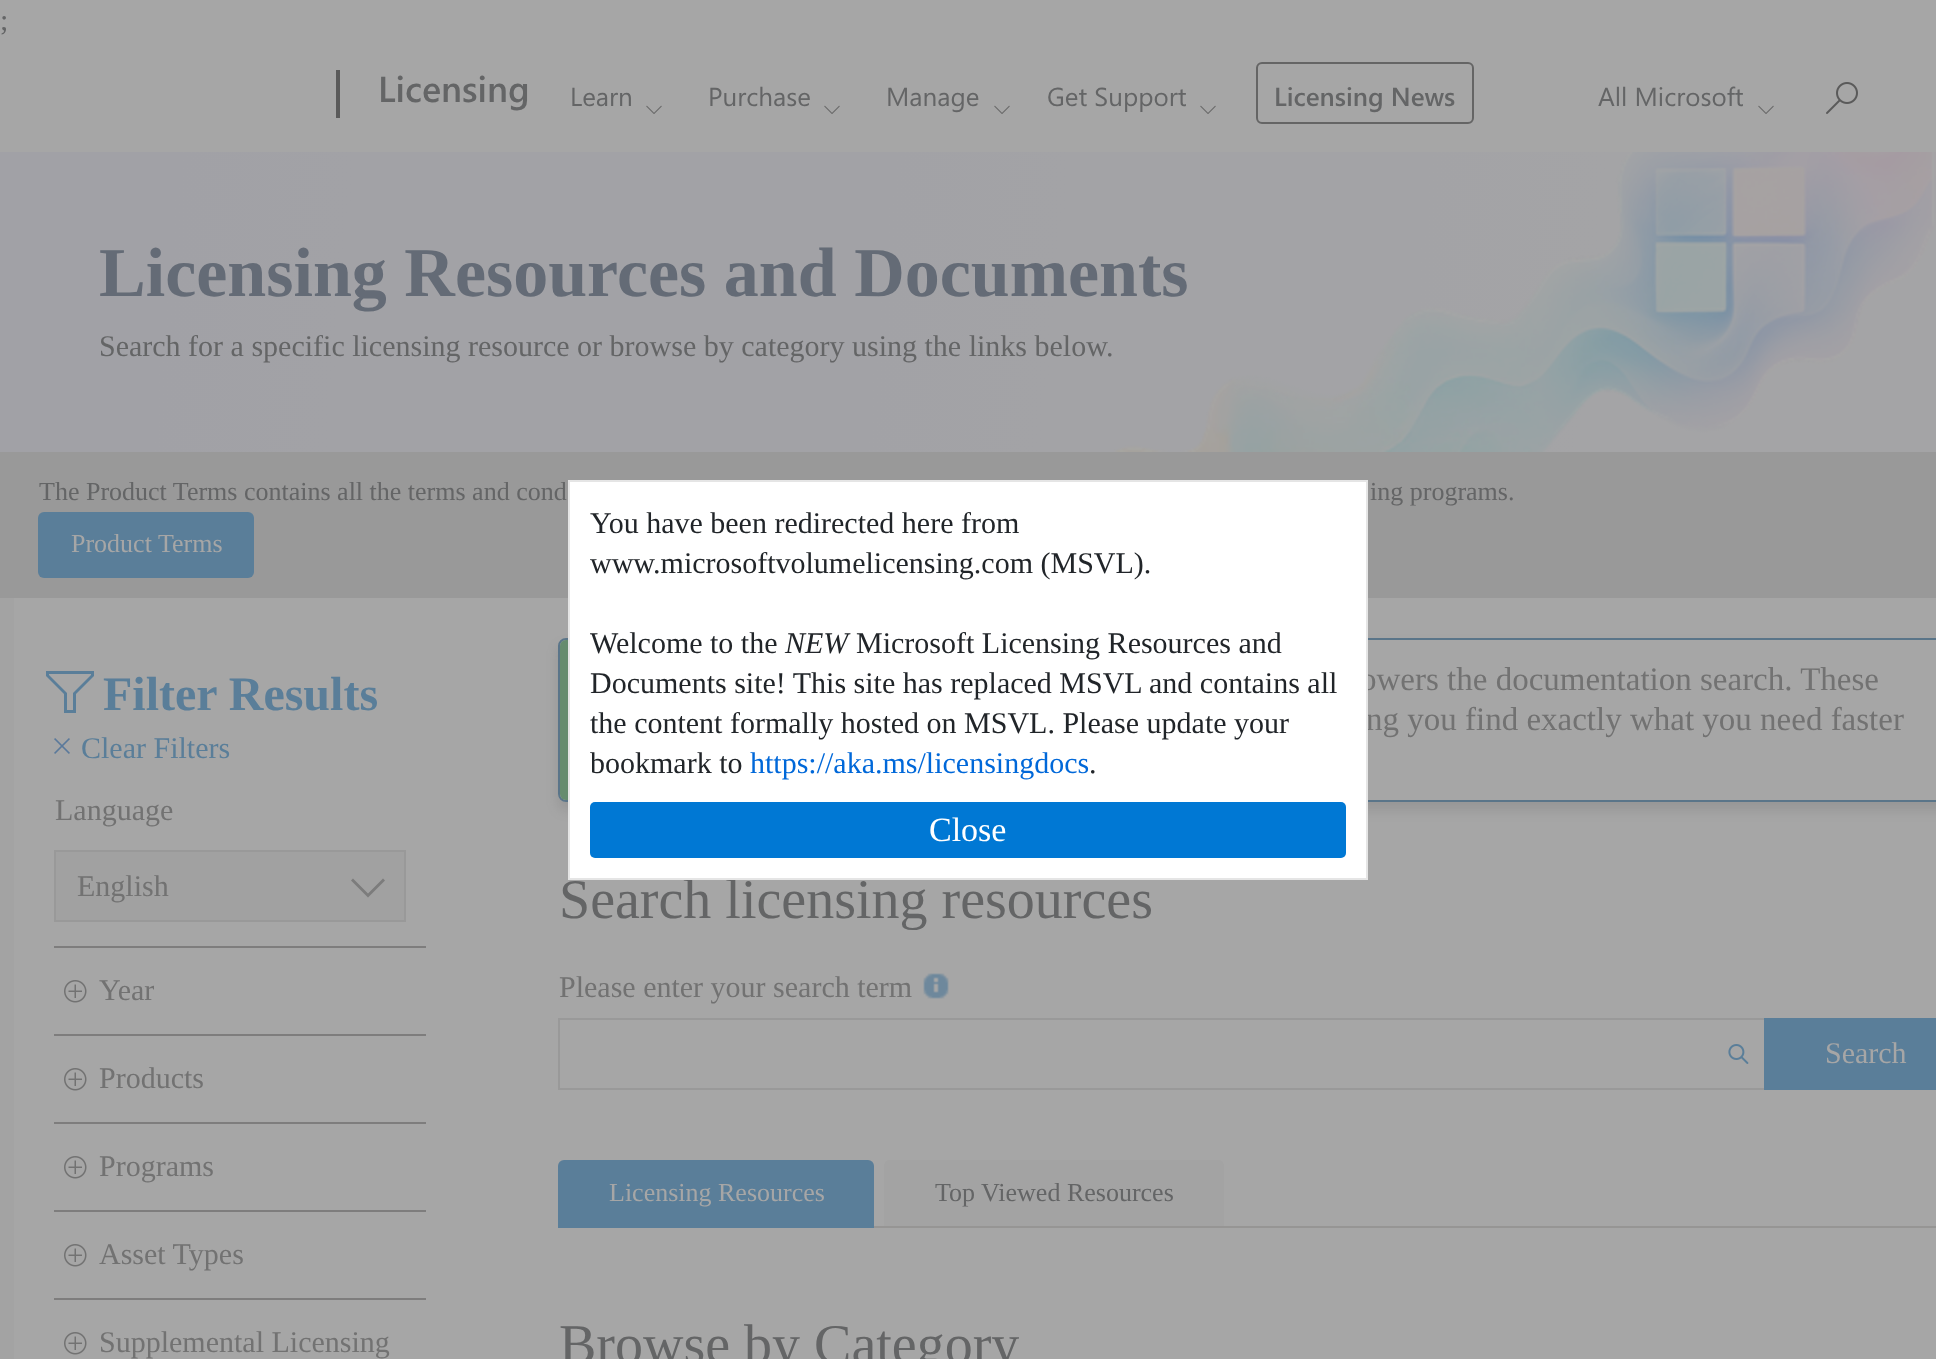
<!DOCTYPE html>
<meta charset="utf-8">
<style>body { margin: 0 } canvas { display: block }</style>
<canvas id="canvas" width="1936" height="1359"></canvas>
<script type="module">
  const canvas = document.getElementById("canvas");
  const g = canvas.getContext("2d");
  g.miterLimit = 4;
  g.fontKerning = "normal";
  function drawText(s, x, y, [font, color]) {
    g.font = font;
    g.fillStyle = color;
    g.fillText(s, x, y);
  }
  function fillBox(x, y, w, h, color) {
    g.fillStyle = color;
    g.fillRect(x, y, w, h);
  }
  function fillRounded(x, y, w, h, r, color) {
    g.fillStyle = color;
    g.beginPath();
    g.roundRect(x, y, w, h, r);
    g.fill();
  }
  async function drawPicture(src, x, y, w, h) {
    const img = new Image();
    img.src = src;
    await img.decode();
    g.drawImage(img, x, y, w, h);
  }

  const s1 = ["30px Liberation Serif", "#646566"];
  const s2 = ["600 36px Segoe UI", "#646566"];
  const s3 = ["26px Segoe UI", "#646566"];
  const s4 = ["600 26px Segoe UI", "#646566"];
  const s5 = ["bold 70px Liberation Serif", "#646B76"];
  const s6 = ["26px Liberation Serif", "#646566"];
  const s7 = ["26px Liberation Serif", "#A6A6A6"];
  const s8 = ["bold 48px Liberation Serif", "#5A7E99"];
  const s9 = ["30px Liberation Serif", "#5A7E99"];
  const s10 = ["30px Liberation Serif", "#727272"];
  const s11 = ["33px Liberation Serif", "#727272"];
  const s12 = ["56px Liberation Serif", "#646566"];
  const s13 = ["30px Liberation Serif", "#A6A6A6"];
  const s14 = ["30px Liberation Serif", "#212529"];
  const s15 = ["italic 30px Liberation Serif", "#212529"];
  const s16 = ["30px Liberation Serif", "#0068D9"];
  const s17 = ["34px Liberation Serif", "#FFFFFF"];

  fillBox(0, 0, 1936, 1359, "#A6A6A6");
  drawText(";", 0, 30, s1);
  fillBox(336, 70, 4, 48, "#5A5A5A");
  drawText("Licensing", 378, 102, s2);
  drawText("Learn", 570, 106, s3);
  await drawPicture("pic1.png", 646, 105, 16, 9);
  drawText("Purchase", 708, 106, s3);
  await drawPicture("pic1.png", 824, 105, 16, 9);
  drawText("Manage", 886, 106, s3);
  await drawPicture("pic1.png", 994, 105, 16, 9);
  drawText("Get Support", 1047, 106, s3);
  await drawPicture("pic1.png", 1200, 105, 16, 9);
  g.beginPath();
  g.roundRect(1257, 63, 216, 60, 5);
  g.strokeStyle = "#656565";
  g.lineWidth = 2;
  g.stroke();
  drawText("Licensing News", 1274, 106, s4);
  drawText("All Microsoft", 1598, 106, s3);
  await drawPicture("pic1.png", 1758, 105, 16, 9);
  await drawPicture("pic2.png", 1826, 82, 32, 32);
  await drawPicture("pic3.png", 0, 152, 1936, 300);
  drawText("Licensing Resources and Documents", 99, 296, s5);
  drawText("Search for a specific licensing resource or browse by category using the links below.", 99, 356, s1);
  fillBox(0, 452, 1936, 146, "#999999");
  drawText("The Product Terms contains all the terms and cond", 39, 500, s6);
  drawText("ing programs.", 1370, 500, s6);
  fillRounded(38, 512, 216, 66, 6, "#5A7E99");
  drawText("Product Terms", 71, 552, s7);
  fillBox(0, 598, 14, 761, "#A3A3A3");
  g.fillStyle = "#5A7E99";
  g.beginPath();
  g.moveTo(94, 671);
  g.lineTo(94, 676);
  g.lineTo(76, 694);
  g.lineTo(76, 713);
  g.lineTo(64, 713);
  g.lineTo(64, 694);
  g.lineTo(46, 676);
  g.lineTo(46, 671);
  g.closePath();
  g.moveTo(91, 674);
  g.lineTo(49, 674);
  g.lineTo(49, 675);
  g.lineTo(67, 693);
  g.lineTo(67, 710);
  g.lineTo(73, 710);
  g.lineTo(73, 693);
  g.lineTo(91, 675);
  g.closePath();
  g.fill();
  drawText("Filter Results", 103, 710, s8);
  await drawPicture("pic4.png", 54, 738, 16, 16);
  drawText("Clear Filters", 81, 758, s9);
  fillBox(54, 946, 372, 2, "#7E7D7D");
  drawText("Language", 55, 820, s10);
  fillBox(56, 852, 348, 68, "#A1A1A1");
  g.fillStyle = "#7C7C7C";
  g.beginPath();
  g.moveTo(351, 880.5);
  g.lineTo(353, 878.5);
  g.lineTo(368, 893.5);
  g.lineTo(383, 878.5);
  g.lineTo(385, 880.5);
  g.lineTo(368, 897.5);
  g.closePath();
  g.fill();
  g.strokeStyle = "#999999";
  g.strokeRect(55, 851, 350, 70);
  drawText("English", 77, 896, s10);
  fillBox(54, 1034, 372, 2, "#7E7D7D");
  await drawPicture("pic5.png", 64, 980, 23, 23);
  drawText("Year", 99, 1000, s10);
  fillBox(54, 1122, 372, 2, "#7E7D7D");
  await drawPicture("pic5.png", 64, 1068, 23, 23);
  drawText("Products", 99, 1088, s10);
  fillBox(54, 1210, 372, 2, "#7E7D7D");
  await drawPicture("pic5.png", 64, 1156, 23, 23);
  drawText("Programs", 99, 1176, s10);
  fillBox(54, 1298, 372, 2, "#7E7D7D");
  await drawPicture("pic5.png", 64, 1244, 23, 23);
  drawText("Asset Types", 99, 1264, s10);
  await drawPicture("pic5.png", 64, 1332, 23, 23);
  drawText("Supplemental Licensing", 99, 1352, s10);
  g.save();
  g.beginPath();
  g.moveTo(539, 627);
  g.lineTo(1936, 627);
  g.lineTo(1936, 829);
  g.lineTo(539, 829);
  g.closePath();
  g.moveTo(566, 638);
  g.lineTo(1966, 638);
  g.bezierCurveTo(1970.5, 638, 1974, 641.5, 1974, 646);
  g.lineTo(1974, 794);
  g.bezierCurveTo(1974, 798.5, 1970.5, 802, 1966, 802);
  g.lineTo(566, 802);
  g.bezierCurveTo(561.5, 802, 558, 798.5, 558, 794);
  g.lineTo(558, 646);
  g.bezierCurveTo(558, 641.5, 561.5, 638, 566, 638);
  g.closePath();
  g.clip("evenodd");
  g.fillStyle = "rgba(90, 90, 90, 0.2)";
  g.filter = "blur(6px)";
  g.beginPath();
  g.roundRect(558, 646, 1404, 164, 8);
  g.fill();
  g.filter = "none";
  g.restore();
  g.beginPath();
  g.roundRect(559, 639, 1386, 162, 7);
  g.strokeStyle = "#5A7589";
  g.stroke();
  g.fillStyle = "#668C6E";
  g.beginPath();
  g.roundRect(560, 640, 28, 160, [6, 0, 0, 6]);
  g.fill();
  drawText("owers the documentation search. These", 1360, 690, s11);
  drawText("ng you find exactly what you need faster", 1366, 730, s11);
  drawText("Search licensing resources", 559, 918, s12);
  drawText("Please enter your search term", 559, 997, s10);
  await drawPicture("pic6.png", 923, 973, 26, 26);
  await drawPicture("pic7.png", 1728, 1044, 21, 20);
  fillBox(558, 1018, 1206, 2, "#999999");
  fillBox(558, 1088, 1206, 2, "#999999");
  fillBox(558, 1018, 2, 72, "#999999");
  fillBox(1764, 1018, 172, 72, "#5A7E99");
  drawText("Search", 1825, 1063, s13);
  g.fillStyle = "#5A7E99";
  g.beginPath();
  g.roundRect(558, 1160, 316, 66, [6, 6, 0, 0]);
  g.fill();
  drawText("Licensing Resources", 609, 1201, s7);
  fillBox(558, 1226, 316, 2, "#5A7E99");
  g.fillStyle = "#A3A3A3";
  g.beginPath();
  g.roundRect(884, 1160, 340, 66, [6, 6, 0, 0]);
  g.fill();
  drawText("Top Viewed Resources", 935, 1201, s6);
  fillBox(874, 1226, 1062, 2, "#969594");
  drawText("Browse by Category", 559, 1363, s12);
  g.fillStyle = "#FFFFFF";
  g.beginPath();
  g.rect(569, 481, 798, 398);
  g.fill();
  g.strokeStyle = "#E5E5E5";
  g.stroke();
  drawText("You have been redirected here from", 590, 533, s14);
  drawText("www.microsoftvolumelicensing.com (MSVL).", 590, 573, s14);
  drawText("Welcome to the", 590, 653, s14);
  drawText("NEW", 785, 653, s15);
  drawText("Microsoft Licensing Resources and", 856, 653, s14);
  drawText("Documents site! This site has replaced MSVL and contains all", 590, 693, s14);
  drawText("the content formally hosted on MSVL. Please update your", 590, 733, s14);
  drawText("bookmark to", 590, 773, s14);
  drawText("https://aka.ms/licensingdocs", 750, 773, s16);
  drawText(".", 1089, 773, s14);
  fillRounded(590, 802, 756, 56, 5, "#0078D4");
  drawText("Close", 929, 841, s17);
</script>
